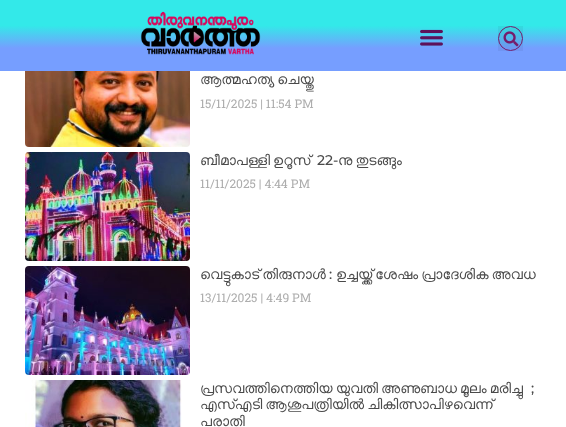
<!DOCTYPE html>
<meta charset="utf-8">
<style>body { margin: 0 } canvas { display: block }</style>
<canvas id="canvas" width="566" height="427"></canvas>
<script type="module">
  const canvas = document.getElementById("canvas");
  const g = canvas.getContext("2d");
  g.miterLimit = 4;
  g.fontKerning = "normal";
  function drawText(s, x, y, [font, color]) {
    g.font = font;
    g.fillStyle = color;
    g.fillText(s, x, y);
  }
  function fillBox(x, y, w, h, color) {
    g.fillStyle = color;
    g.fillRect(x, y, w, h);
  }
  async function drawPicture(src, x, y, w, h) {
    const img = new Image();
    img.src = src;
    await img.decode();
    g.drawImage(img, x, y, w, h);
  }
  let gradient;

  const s1 = ["14px FreeSans", "#4A4A4A"];
  const s2 = ["12px Roboto Slab", "#ADADAD"];
  const s3 = ["500 14px Montserrat", "#4A4A4A"];

  fillBox(0, 0, 566, 427, "#FFFFFF");
  gradient = g.createLinearGradient(283, 0, 283, 71);
  gradient.addColorStop(0.36, "#33E9E9");
  gradient.addColorStop(0.68, "#769EFF");
  g.fillStyle = gradient;
  g.fillRect(0, 0, 566, 71);
  await drawPicture("pic1.png", 140, 11, 121, 44);
  await drawPicture("pic2.png", 420, 29, 23, 17);
  fillBox(498, 26, 25, 25, "rgba(0, 0, 0, 0.05)");
  g.beginPath();
  g.arc(510.5, 38.5, 12, 0, Math.PI * 2);
  g.strokeStyle = "#761C6C";
  g.stroke();
  await drawPicture("pic3.png", 503, 31, 16, 16);
  await drawPicture("pic4.png", 25, 71, 165, 76);
  g.wordSpacing = "-0.5px";
  drawText("ആത്മഹത്യ ചെയ്തു", 200, 84, s1);
  g.wordSpacing = "0px";
  drawText("15/11/2025 | 11:54 PM", 200, 108, s2);
  await drawPicture("pic5.png", 25, 152, 165, 109);
  g.wordSpacing = "-0.5px";
  drawText("ബീമാപള്ളി ഉറൂസ്", 200, 165, s1);
  g.wordSpacing = "0px";
  drawText("22-", 317, 165, s3);
  g.wordSpacing = "-0.5px";
  drawText("നു തുടങ്ങും", 338, 165, s1);
  g.wordSpacing = "0px";
  drawText("11/11/2025 | 4:44 PM", 200, 188, s2);
  await drawPicture("pic6.png", 25, 266, 165, 109);
  g.wordSpacing = "-0.5px";
  drawText("വെട്ടുകാട് തിരുനാൾ", 200, 279, s1);
  g.wordSpacing = "0px";
  drawText(":", 329, 279, s3);
  g.save();
  g.beginPath();
  g.rect(25, 266, 516, 109);
  g.clip();
  g.wordSpacing = "-0.5px";
  drawText("ഉച്ചയ്ക്ക് ശേഷം പ്രാദേശിക അവധ", 336, 279, s1);
  g.restore();
  drawText("13/11/2025 | 4:49 PM", 200, 302, s2);
  await drawPicture("pic7.png", 25, 380, 157, 47);
  g.wordSpacing = "-0.5px";
  drawText("പ്രസവത്തിനെത്തിയ യുവതി അണുബാധ മൂലം മരിച്ചു", 200, 393, s1);
  g.wordSpacing = "0px";
  drawText(";", 531, 393, s3);
  g.wordSpacing = "-0.5px";
  drawText("എസ്എടി ആശുപത്രിയിൽ ചികിത്സാപിഴവെന്ന്", 200, 409, s1);
  g.wordSpacing = "0px";
  drawText("പരാതി", 200, 426, s1);
</script>
